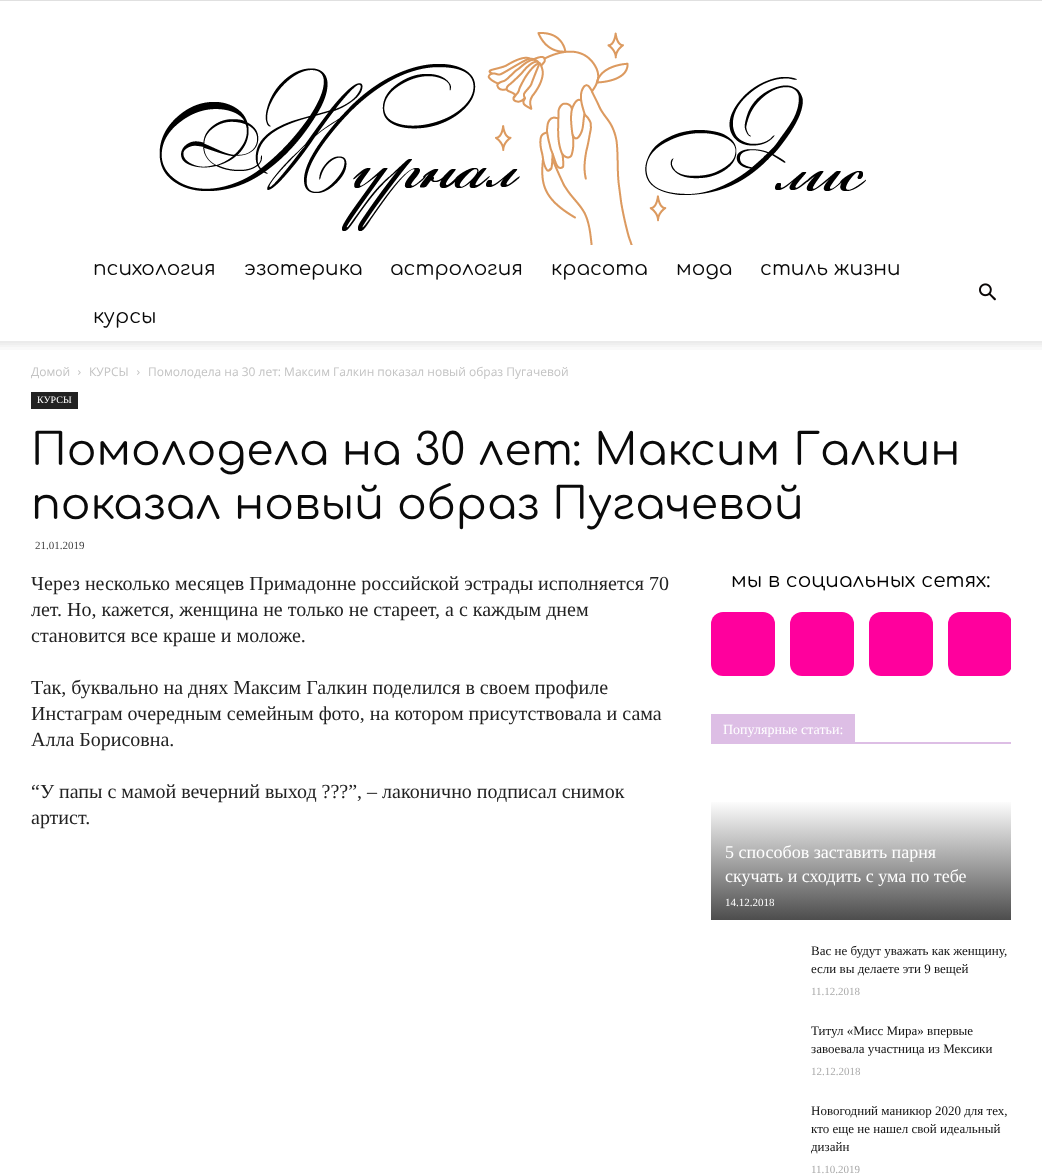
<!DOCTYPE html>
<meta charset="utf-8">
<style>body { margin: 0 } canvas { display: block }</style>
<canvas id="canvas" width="1042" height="1174"></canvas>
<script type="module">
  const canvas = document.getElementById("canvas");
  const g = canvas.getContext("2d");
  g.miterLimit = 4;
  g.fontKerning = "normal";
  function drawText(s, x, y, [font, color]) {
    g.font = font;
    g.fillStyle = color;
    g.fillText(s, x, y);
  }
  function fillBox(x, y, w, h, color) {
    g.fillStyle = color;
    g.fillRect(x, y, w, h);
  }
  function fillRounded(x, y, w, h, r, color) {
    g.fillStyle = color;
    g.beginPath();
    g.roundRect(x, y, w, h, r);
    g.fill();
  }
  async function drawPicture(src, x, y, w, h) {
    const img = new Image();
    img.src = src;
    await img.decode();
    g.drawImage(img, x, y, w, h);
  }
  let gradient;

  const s1 = ["20px Comfortaa", "#0A0A0A"];
  const s2 = ["12px Open Sans", "#C3C3C3"];
  const s3 = ["10px Liberation Serif", "#FFFFFF"];
  const s4 = ["44px Comfortaa", "#0A0A0A"];
  const s5 = ["11px Liberation Serif", "#444444"];
  const s6 = ["20px Liberation Serif", "#222222"];
  const s7 = ["20px Comfortaa", "#000000"];
  const s8 = ["14px Liberation Serif", "#FFFFFF"];
  const s9 = ["18px Liberation Serif", "#FFFFFF"];
  const s10 = ["11px Liberation Serif", "#FFFFFF"];
  const s11 = ["13px Liberation Serif", "#111111"];
  const s12 = ["11px Liberation Serif", "#AAAAAA"];

  fillBox(0, 0, 1042, 1174, "#FFFFFF");
  fillBox(0, 0, 1042, 1, "#E0E0E0");
  await drawPicture("pic1.png", 159, 32, 707, 213);
  drawText("психология", 93, 275, s1);
  drawText("эзотерика", 244, 275, s1);
  drawText("астрология", 390, 275, s1);
  drawText("красота", 551, 275, s1);
  drawText("мода", 676, 275, s1);
  drawText("стиль жизни", 760, 275, s1);
  drawText("курсы", 93, 323, s1);
  await drawPicture("pic2.png", 979, 283, 17, 18);
  await drawPicture("pic3.png", 0, 341, 1042, 9);
  drawText("Домой", 31, 376, s2);
  await drawPicture("pic4.png", 78, 370, 3, 5);
  drawText("КУРСЫ", 89, 376, s2);
  await drawPicture("pic4.png", 137, 370, 3, 5);
  drawText("Помолодела на 30 лет: Максим Галкин показал новый образ Пугачевой", 148, 376, s2);
  fillBox(31, 392, 47, 17, "#222222");
  drawText("КУРСЫ", 37, 403, s3);
  drawText("Помолодела на 30 лет: Максим Галкин", 31, 465, s4);
  drawText("показал новый образ Пугачевой", 31, 519, s4);
  drawText("21.01.2019", 35, 549, s5);
  drawText("Через несколько месяцев Примадонне российской эстрады исполняется 70", 31, 590, s6);
  drawText("лет. Но, кажется, женщина не только не стареет, а с каждым днем", 31, 616, s6);
  drawText("становится все краше и моложе.", 31, 642, s6);
  drawText("Так, буквально на днях Максим Галкин поделился в своем профиле", 31, 694, s6);
  drawText("Инстаграм очередным семейным фото, на котором присутствовала и сама", 31, 720, s6);
  drawText("Алла Борисовна.", 31, 746, s6);
  drawText("“У папы с мамой вечерний выход ???”, – лаконично подписал снимок", 31, 798, s6);
  drawText("артист.", 31, 824, s6);
  drawText("мы в социальных сетях:", 731, 587, s7);
  fillRounded(711, 612, 64, 64, 12, "#FF009D");
  fillRounded(790, 612, 64, 64, 12, "#FF009D");
  fillRounded(869, 612, 64, 64, 12, "#FF009D");
  g.save();
  g.beginPath();
  g.rect(711, 570, 300, 106);
  g.clip();
  fillRounded(948, 612, 64, 64, 12, "#FF009D");
  g.restore();
  fillBox(711, 742, 300, 2, "#DDBEE5");
  fillBox(711, 714, 144, 28, "#DDBEE5");
  drawText("Популярные статьи:", 723, 734, s8);
  gradient = g.createLinearGradient(861, 800, 861, 920);
  gradient.addColorStop(0, "#FFFFFF");
  gradient.addColorStop(1, "#4D4D4D");
  g.fillStyle = gradient;
  g.fillRect(711, 802, 300, 118);
  drawText("5 способов заставить парня", 725, 858, s9);
  drawText("скучать и сходить с ума по тебе", 725, 882, s9);
  drawText("14.12.2018", 725, 906, s10);
  drawText("Вас не будут уважать как женщину,", 811, 955, s11);
  drawText("если вы делаете эти 9 вещей", 811, 973, s11);
  drawText("11.12.2018", 811, 995, s12);
  drawText("Титул «Мисс Мира» впервые", 811, 1035, s11);
  drawText("завоевала участница из Мексики", 811, 1053, s11);
  drawText("12.12.2018", 811, 1075, s12);
  drawText("Новогодний маникюр 2020 для тех,", 811, 1115, s11);
  drawText("кто еще не нашел свой идеальный", 811, 1133, s11);
  drawText("дизайн", 811, 1151, s11);
  drawText("11.10.2019", 811, 1173, s12);
</script>
